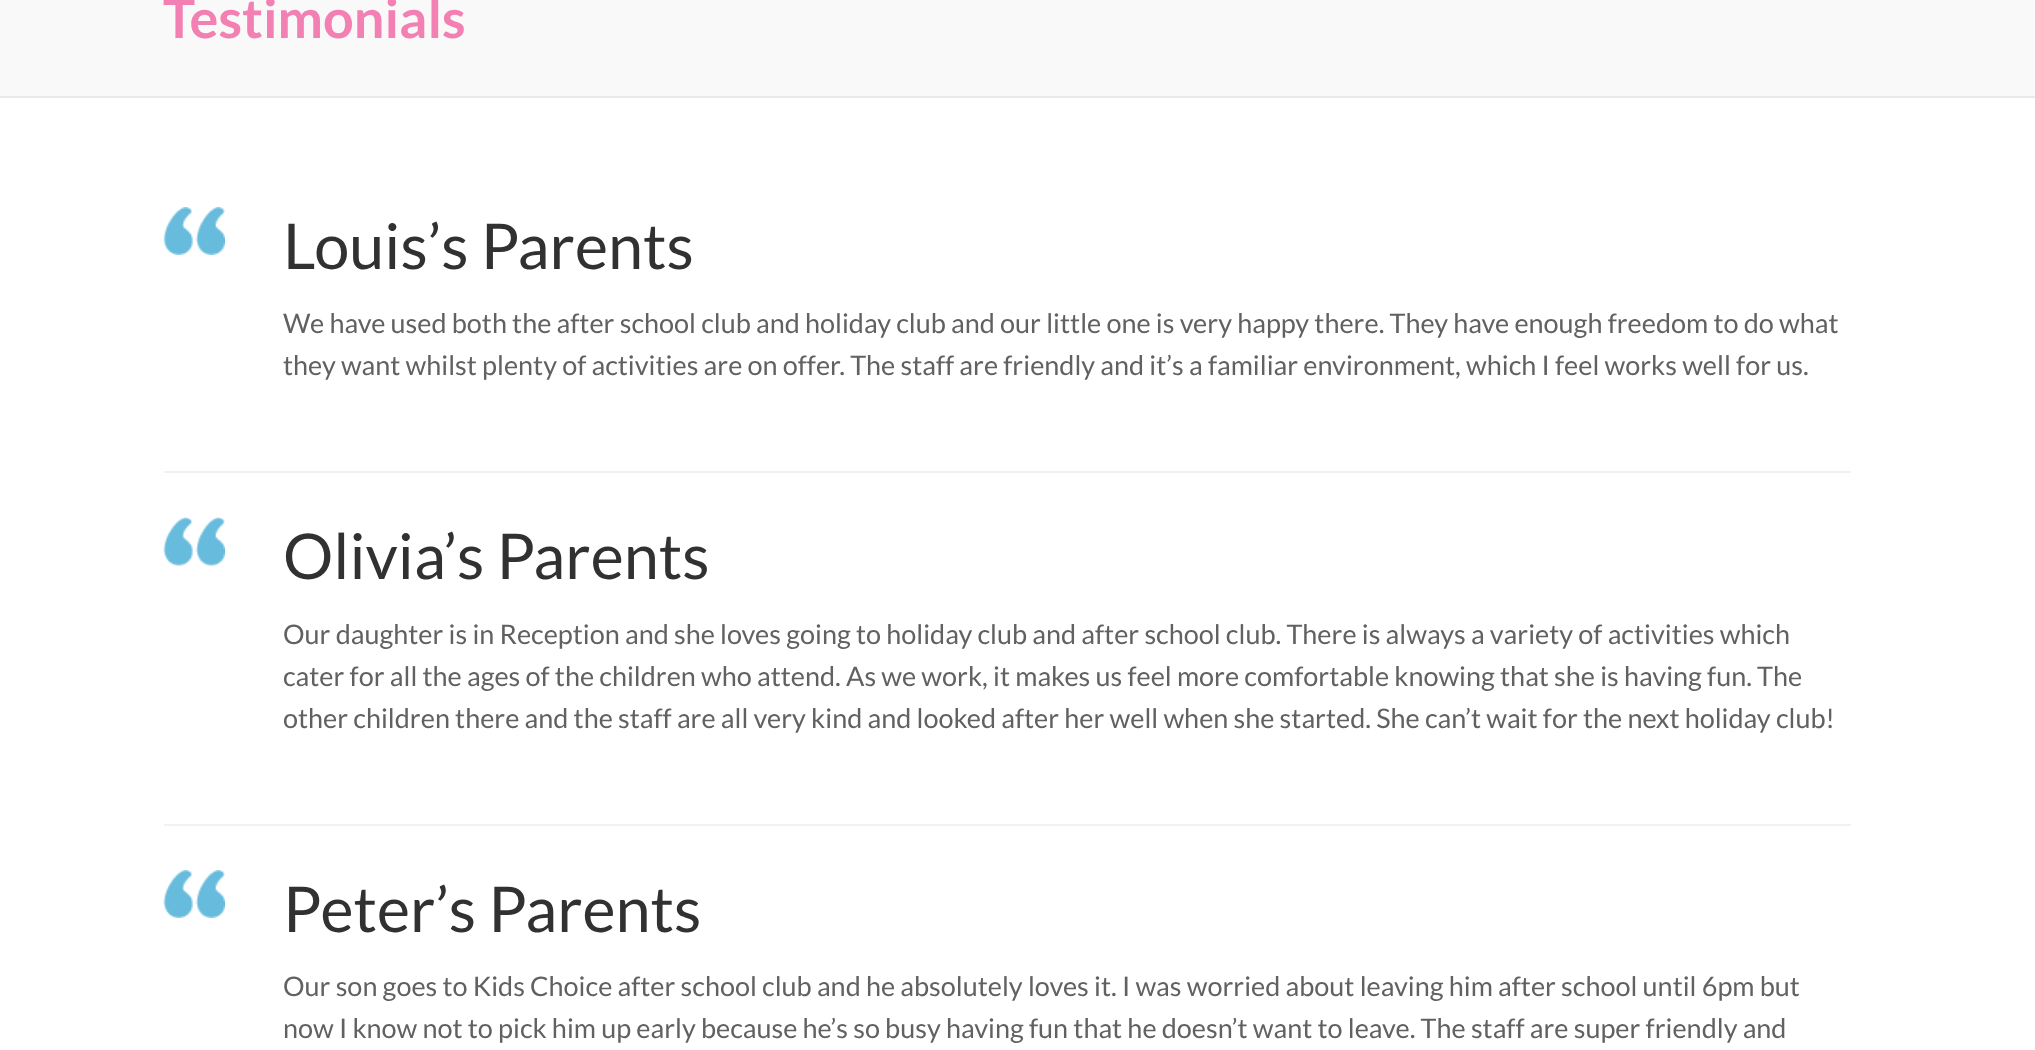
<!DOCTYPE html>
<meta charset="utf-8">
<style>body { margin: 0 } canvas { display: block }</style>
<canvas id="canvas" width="2035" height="1050"></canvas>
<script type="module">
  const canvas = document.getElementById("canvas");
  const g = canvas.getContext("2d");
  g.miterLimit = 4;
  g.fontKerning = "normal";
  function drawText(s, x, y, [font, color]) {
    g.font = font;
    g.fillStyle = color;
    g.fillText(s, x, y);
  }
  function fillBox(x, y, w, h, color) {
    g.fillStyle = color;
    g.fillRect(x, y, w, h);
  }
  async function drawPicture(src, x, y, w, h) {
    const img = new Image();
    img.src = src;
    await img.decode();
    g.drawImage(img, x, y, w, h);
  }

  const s1 = ["bold 54px Lato", "#F380B2"];
  const s2 = ["63px Lato", "#313131"];
  const s3 = ["27px Lato", "#616161"];

  fillBox(0, 0, 2035, 1050, "#FFFFFF");
  fillBox(0, 0, 2035, 96, "#F9F9F9");
  fillBox(0, 96, 2035, 2, "#E9E9E9");
  drawText("Testimonials", 163, 38, s1);
  fillBox(164, 471, 1687, 2, "#F2F2F2");
  await drawPicture("pic1.png", 163, 207, 62, 48);
  drawText("Louis’s Parents", 283, 269, s2);
  drawText("We have used both the after school club and holiday club and our little one is very happy there. They have enough freedom to do what", 283, 333, s3);
  drawText("they want whilst plenty of activities are on offer. The staff are friendly and it’s a familiar environment, which I feel works well for us.", 283, 375, s3);
  fillBox(164, 824, 1687, 2, "#F2F2F2");
  await drawPicture("pic2.png", 163, 517, 62, 49);
  drawText("Olivia’s Parents", 283, 579, s2);
  drawText("Our daughter is in Reception and she loves going to holiday club and after school club. There is always a variety of activities which", 283, 644, s3);
  drawText("cater for all the ages of the children who attend. As we work, it makes us feel more comfortable knowing that she is having fun. The", 283, 686, s3);
  drawText("other children there and the staff are all very kind and looked after her well when she started. She can’t wait for the next holiday club!", 283, 728, s3);
  await drawPicture("pic1.png", 163, 870, 62, 48);
  drawText("Peter’s Parents", 283, 932, s2);
  drawText("Our son goes to Kids Choice after school club and he absolutely loves it. I was worried about leaving him after school until 6pm but", 283, 996, s3);
  drawText("now I know not to pick him up early because he’s so busy having fun that he doesn’t want to leave. The staff are super friendly and", 283, 1038, s3);
</script>
